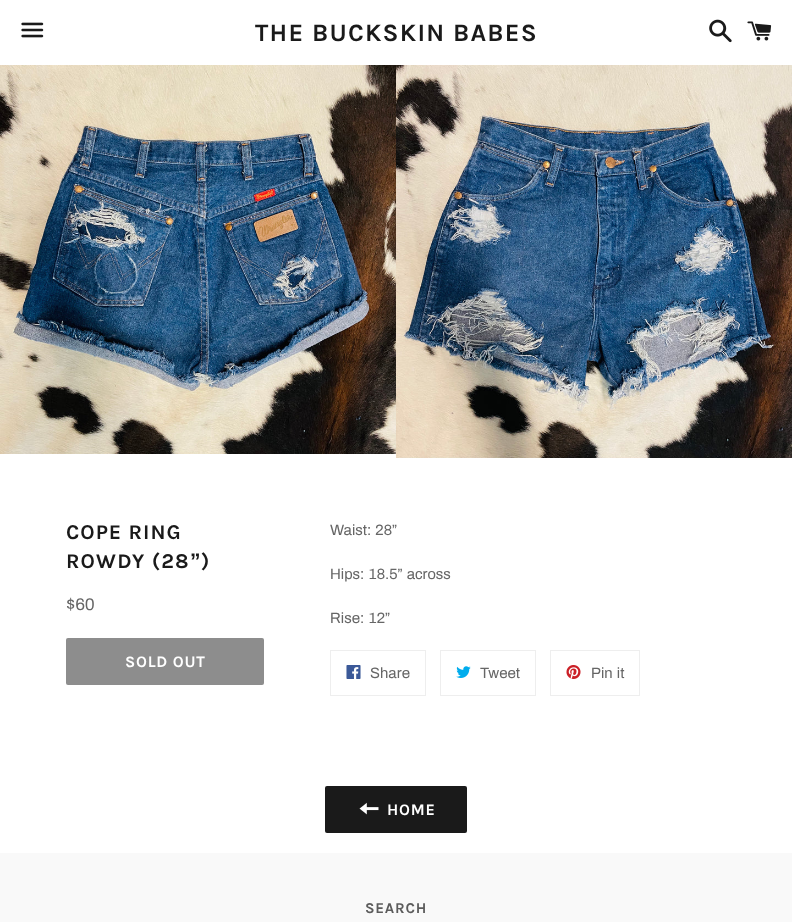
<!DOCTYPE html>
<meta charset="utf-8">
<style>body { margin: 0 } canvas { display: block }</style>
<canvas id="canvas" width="792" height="922"></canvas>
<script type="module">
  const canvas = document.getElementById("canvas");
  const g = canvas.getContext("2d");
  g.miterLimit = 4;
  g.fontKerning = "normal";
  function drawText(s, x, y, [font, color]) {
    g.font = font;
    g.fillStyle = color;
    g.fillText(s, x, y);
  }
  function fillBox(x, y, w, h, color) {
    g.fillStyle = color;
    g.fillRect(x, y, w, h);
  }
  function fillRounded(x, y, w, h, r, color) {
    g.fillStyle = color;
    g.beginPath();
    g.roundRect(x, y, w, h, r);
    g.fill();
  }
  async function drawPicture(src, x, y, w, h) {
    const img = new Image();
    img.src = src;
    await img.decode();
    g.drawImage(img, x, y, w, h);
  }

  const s1 = ["bold 25px Karla", "#1A1A1A"];
  const s2 = ["bold 21px Karla", "#1A1A1A"];
  const s3 = ["bold 21px Liberation Sans", "#1A1A1A"];
  const s4 = ["17px Archivo", "#666666"];
  const s5 = ["bold 16px Karla", "#FFFFFF"];
  const s6 = ["15px Archivo", "#666666"];
  const s7 = ["bold 15px Karla", "#5C5C5C"];

  fillBox(0, 0, 792, 922, "#FFFFFF");
  await drawPicture("pic1.png", 21, 22, 23, 16);
  g.letterSpacing = "1.25px";
  drawText("THE BUCKSKIN BABES", 255, 41, s1);
  await drawPicture("pic2.png", 709, 19, 23, 24);
  await drawPicture("pic3.png", 747, 21, 25, 20);
  await drawPicture("pic4.png", 0, 65, 396, 389);
  await drawPicture("pic5.png", 396, 65, 396, 393);
  g.letterSpacing = "1px";
  drawText("COPE RING", 66, 539, s2);
  drawText("ROWDY (28", 66, 568, s2);
  drawText("”", 190, 568, s3);
  drawText(")", 201, 568, s2);
  g.letterSpacing = "0px";
  drawText("$60", 66, 610, s4);
  fillRounded(66, 638, 198, 47, 2, "#8D8D8D");
  g.letterSpacing = "0.75px";
  drawText("SOLD OUT", 125, 667, s5);
  g.letterSpacing = "0px";
  drawText("Waist: 28”", 330, 535, s6);
  drawText("Hips: 18.5” across", 330, 579, s6);
  drawText("Rise: 12”", 330, 623, s6);
  g.strokeStyle = "#EEEEEE";
  g.strokeRect(330.5, 650.5, 95, 45);
  await drawPicture("pic6.png", 346, 665, 15, 14);
  drawText("Share", 370, 678, s6);
  g.strokeRect(440.5, 650.5, 95, 45);
  await drawPicture("pic7.png", 456, 666, 15, 12);
  drawText("Tweet", 480, 678, s6);
  g.strokeRect(550.5, 650.5, 89, 45);
  await drawPicture("pic8.png", 566, 665, 15, 14);
  drawText("Pin it", 591, 678, s6);
  fillRounded(325, 786, 142, 47, 2, "#1A1A1A");
  await drawPicture("pic9.png", 359, 802, 20, 13);
  g.letterSpacing = "0.75px";
  drawText("HOME", 387, 815, s5);
  fillBox(0, 853, 792, 69, "#F9F9F9");
  drawText("SEARCH", 365, 913, s7);
</script>
